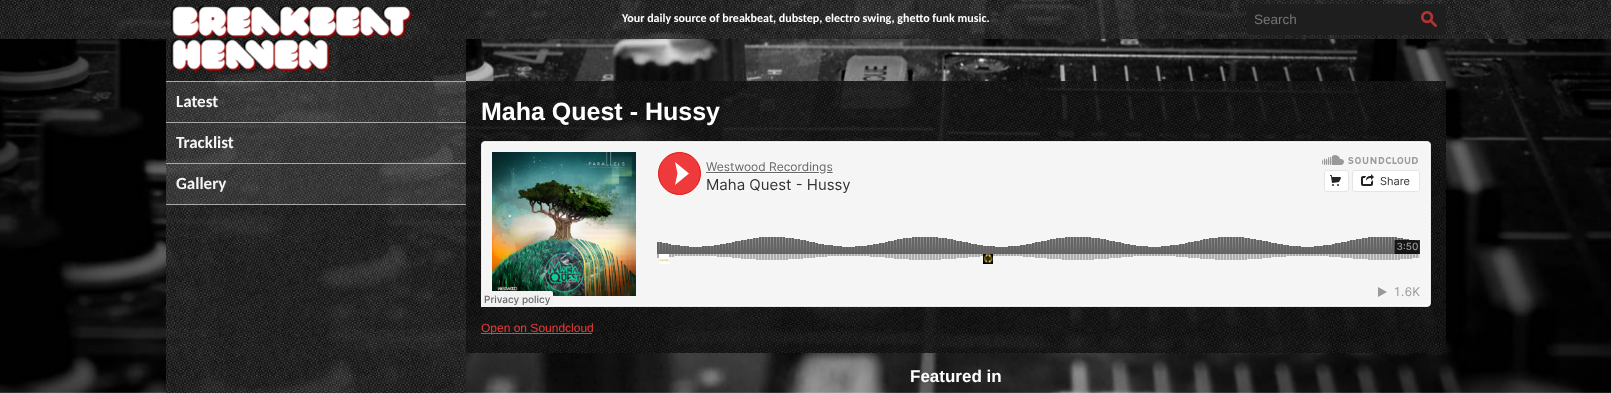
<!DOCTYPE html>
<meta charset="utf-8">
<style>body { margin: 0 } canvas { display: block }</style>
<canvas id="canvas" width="1611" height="393"></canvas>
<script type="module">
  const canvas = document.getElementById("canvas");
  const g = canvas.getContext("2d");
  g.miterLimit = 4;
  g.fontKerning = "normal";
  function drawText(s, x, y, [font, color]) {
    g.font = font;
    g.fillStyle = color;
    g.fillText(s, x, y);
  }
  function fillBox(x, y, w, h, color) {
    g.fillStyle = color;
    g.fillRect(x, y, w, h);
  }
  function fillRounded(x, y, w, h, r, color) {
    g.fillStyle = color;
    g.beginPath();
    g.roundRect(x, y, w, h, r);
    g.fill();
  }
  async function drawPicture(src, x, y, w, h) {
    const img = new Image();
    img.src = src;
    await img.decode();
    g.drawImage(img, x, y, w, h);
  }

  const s1 = ["bold 12px Carlito", "#FFFFFF"];
  const s2 = ["13.5px Liberation Sans", "#757575"];
  const s3 = ["bold 17px Carlito", "#F5F5F5"];
  const s4 = ["bold 25px Liberation Sans", "#FFFFFF"];
  const s5 = ["12px Liberation Sans", "#EE3B3B"];
  const s6 = ["bold 17px Liberation Sans", "#FFFFFF"];

  fillBox(0, 0, 1611, 393, "#FFFFFF");
  await drawPicture("pic1.png", 0, 0, 1611, 393);
  await drawPicture("pic2.png", 0, 0, 1611, 39);
  await drawPicture("pic5.png", 166, 39, 300, 41);
  await drawPicture("pic3.png", 170, 6, 241, 65);
  drawText("Your daily source of breakbeat, dubstep, electro swing, ghetto funk music.", 622, 22, s1);
  fillRounded(1246, 4, 200, 31, 6, "#1E1E1E");
  drawText("Search", 1254, 24, s2);
  await drawPicture("pic4.png", 1421, 11, 16, 16);
  await drawPicture("pic6.png", 166, 80, 300, 313);
  fillBox(166, 82, 300, 40, "rgba(255, 255, 255, 0.1)");
  fillBox(166, 81, 300, 1, "#AAAAAA");
  fillBox(166, 122, 300, 1, "#AAAAAA");
  drawText("Latest", 176, 107, s3);
  fillBox(166, 123, 300, 40, "rgba(255, 255, 255, 0.1)");
  fillBox(166, 163, 300, 1, "#AAAAAA");
  drawText("Tracklist", 176, 148, s3);
  fillBox(166, 164, 300, 40, "rgba(255, 255, 255, 0.1)");
  fillBox(166, 204, 300, 1, "#AAAAAA");
  drawText("Gallery", 176, 189, s3);
  await drawPicture("pic7.png", 466, 81, 980, 272);
  drawText("Maha Quest - Hussy", 481, 120, s4);
  await drawPicture("pic8.png", 481, 141, 950, 166);
  fillBox(481, 333, 111, 1, "#EE3B3B");
  drawText("Open on Soundcloud", 481, 332, s5);
  drawText("Featured in", 910, 382, s6);
</script>
